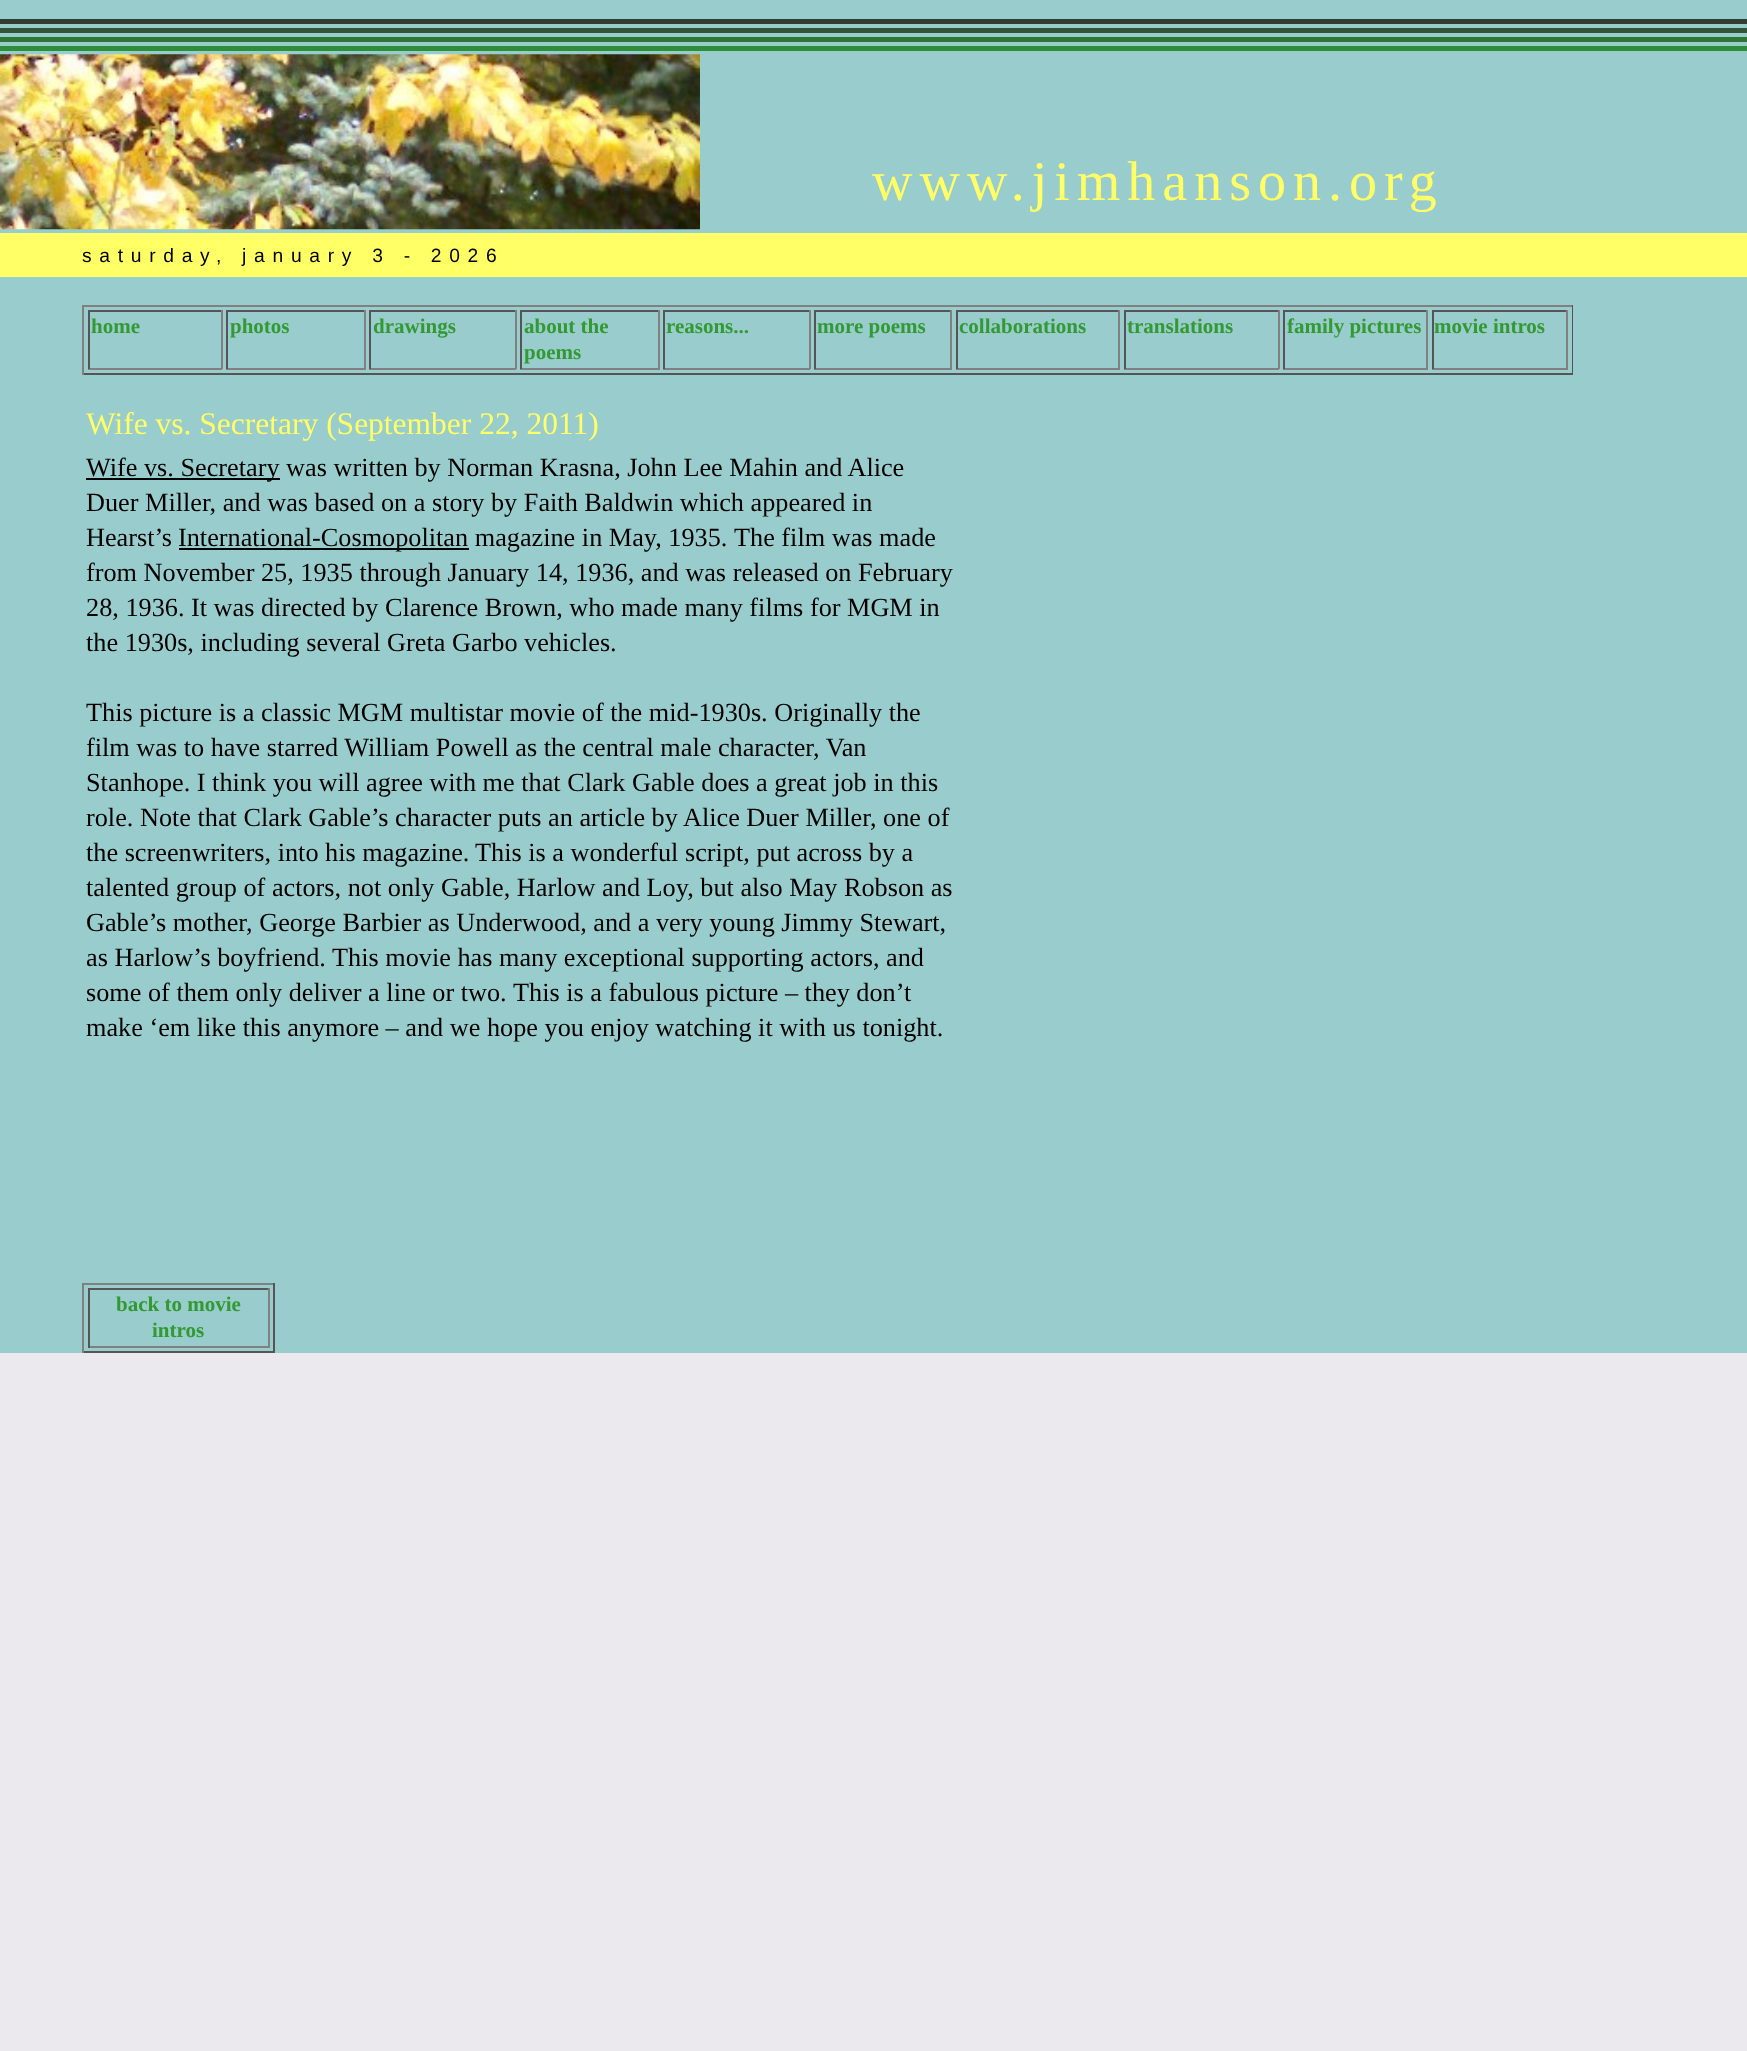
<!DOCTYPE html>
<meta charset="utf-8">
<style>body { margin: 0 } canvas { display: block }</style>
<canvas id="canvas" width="1747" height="2051"></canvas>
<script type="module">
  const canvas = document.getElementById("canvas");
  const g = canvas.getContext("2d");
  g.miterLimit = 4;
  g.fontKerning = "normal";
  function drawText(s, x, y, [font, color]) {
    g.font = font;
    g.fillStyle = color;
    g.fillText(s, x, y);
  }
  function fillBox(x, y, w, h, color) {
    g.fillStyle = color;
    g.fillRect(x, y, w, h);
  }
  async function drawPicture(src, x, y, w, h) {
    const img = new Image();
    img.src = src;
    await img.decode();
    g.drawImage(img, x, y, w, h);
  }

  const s1 = ["56px Liberation Serif", "#FFFF66"];
  const s2 = ["19.25px Liberation Sans", "#000000"];
  const s3 = ["bold 21px Liberation Serif", "#339933"];
  const s4 = ["31.5px Liberation Serif", "#FFFF66"];
  const s5 = ["26.25px Liberation Serif", "#000000"];

  fillBox(0, 0, 1747, 2051, "#EBE9ED");
  fillBox(0, 0, 1747, 1353, "#99CCCC");
  fillBox(0, 19, 1747, 5, "#323E34");
  fillBox(0, 28, 1747, 5, "#315535");
  fillBox(0, 37, 1747, 5, "#2F7636");
  fillBox(0, 46, 1747, 5, "#2E8D37");
  await drawPicture("pic1.png", 0, 54, 700, 176);
  g.letterSpacing = "7px";
  drawText("www.jimhanson.org", 872, 200, s1);
  fillBox(0, 233, 1747, 44, "#FFFF66");
  g.letterSpacing = "7.7px";
  drawText("saturday, january 3 - 2026", 82, 262, s2);
  fillBox(82, 305, 1491, 2, "#808080");
  fillBox(1572, 305, 1, 70, "#555555");
  fillBox(82, 373, 1491, 2, "#555555");
  fillBox(82, 305, 2, 70, "#808080");
  fillBox(88, 310, 134, 2, "#555555");
  fillBox(221, 310, 2, 59, "#808080");
  fillBox(88, 368, 134, 2, "#808080");
  fillBox(88, 310, 2, 59, "#555555");
  g.letterSpacing = "0px";
  drawText("home", 91, 333, s3);
  fillBox(226, 310, 140, 2, "#555555");
  fillBox(364, 310, 2, 59, "#808080");
  fillBox(226, 368, 140, 2, "#808080");
  fillBox(226, 310, 2, 59, "#555555");
  drawText("photos", 230, 333, s3);
  fillBox(369, 310, 147, 2, "#555555");
  fillBox(515, 310, 2, 59, "#808080");
  fillBox(369, 368, 147, 2, "#808080");
  fillBox(369, 310, 2, 59, "#555555");
  drawText("drawings", 373, 333, s3);
  fillBox(520, 310, 140, 2, "#555555");
  fillBox(658, 310, 2, 59, "#808080");
  fillBox(520, 368, 140, 2, "#808080");
  fillBox(520, 310, 2, 59, "#555555");
  drawText("about the", 524, 333, s3);
  drawText("poems", 524, 359, s3);
  fillBox(663, 310, 147, 2, "#555555");
  fillBox(809, 310, 2, 59, "#808080");
  fillBox(663, 368, 147, 2, "#808080");
  fillBox(663, 310, 2, 59, "#555555");
  drawText("reasons...", 666, 333, s3);
  fillBox(814, 310, 138, 2, "#555555");
  fillBox(950, 310, 2, 59, "#808080");
  fillBox(814, 368, 138, 2, "#808080");
  fillBox(814, 310, 2, 59, "#555555");
  drawText("more poems", 817, 333, s3);
  fillBox(956, 310, 164, 2, "#555555");
  fillBox(1118, 310, 2, 59, "#808080");
  fillBox(956, 368, 164, 2, "#808080");
  fillBox(956, 310, 2, 59, "#555555");
  drawText("collaborations", 959, 333, s3);
  fillBox(1124, 310, 155, 2, "#555555");
  fillBox(1278, 310, 2, 59, "#808080");
  fillBox(1124, 368, 155, 2, "#808080");
  fillBox(1124, 310, 2, 59, "#555555");
  drawText("translations", 1127, 333, s3);
  fillBox(1283, 310, 145, 2, "#555555");
  fillBox(1426, 310, 2, 59, "#808080");
  fillBox(1283, 368, 145, 2, "#808080");
  fillBox(1283, 310, 2, 59, "#555555");
  drawText("family pictures", 1287, 333, s3);
  fillBox(1432, 310, 136, 2, "#555555");
  fillBox(1566, 310, 2, 59, "#808080");
  fillBox(1432, 368, 136, 2, "#808080");
  fillBox(1432, 310, 2, 59, "#555555");
  drawText("movie intros", 1434, 333, s3);
  drawText("Wife vs. Secretary (September 22, 2011)", 86, 434, s4);
  fillBox(86, 478, 194, 2, "#000000");
  drawText("Wife vs. Secretary was written by Norman Krasna, John Lee Mahin and Alice", 86, 476, s5);
  drawText("Duer Miller, and was based on a story by Faith Baldwin which appeared in", 86, 511, s5);
  drawText("Hearst’s", 86, 546, s5);
  fillBox(179, 548, 290, 2, "#000000");
  drawText("International-Cosmopolitan magazine in May, 1935.", 178, 546, s5);
  drawText("The film was made", 734, 546, s5);
  drawText("from November 25, 1935 through January 14, 1936, and was released on February", 86, 581, s5);
  drawText("28, 1936. It was directed by Clarence Brown, who made many films for MGM in", 86, 616, s5);
  drawText("the 1930s, including several Greta Garbo vehicles.", 86, 651, s5);
  drawText("This picture is a classic MGM multistar movie of the mid-1930s. Originally the", 86, 721, s5);
  drawText("film was to have starred William Powell as the central male character, Van", 86, 756, s5);
  drawText("Stanhope. I think you will agree with me that Clark Gable does a great job in this", 86, 791, s5);
  drawText("role. Note that Clark Gable’s character puts an article by Alice Duer Miller, one of", 86, 826, s5);
  drawText("the screenwriters, into his magazine.", 86, 861, s5);
  drawText("This is a wonderful script, put across by a", 475, 861, s5);
  drawText("talented group of actors, not only Gable, Harlow and Loy, but also May Robson as", 86, 896, s5);
  drawText("Gable’s mother, George Barbier as Underwood, and a very young Jimmy Stewart,", 86, 931, s5);
  drawText("as Harlow’s boyfriend.", 86, 966, s5);
  drawText("This movie has many exceptional supporting actors, and", 332, 966, s5);
  drawText("some of them only deliver a line or two.", 86, 1001, s5);
  drawText("This is a fabulous picture – they don’t", 513, 1001, s5);
  drawText("make ‘em like this anymore – and we hope you enjoy watching it with us tonight.", 86, 1036, s5);
  fillBox(82, 1283, 193, 2, "#808080");
  fillBox(273, 1283, 2, 70, "#555555");
  fillBox(82, 1351, 193, 2, "#555555");
  fillBox(82, 1283, 2, 70, "#808080");
  fillBox(88, 1288, 182, 2, "#555555");
  fillBox(268, 1288, 2, 60, "#808080");
  fillBox(88, 1346, 182, 2, "#808080");
  fillBox(88, 1288, 2, 60, "#555555");
  drawText("back to movie", 116, 1311, s3);
  drawText("intros", 152, 1337, s3);
</script>
